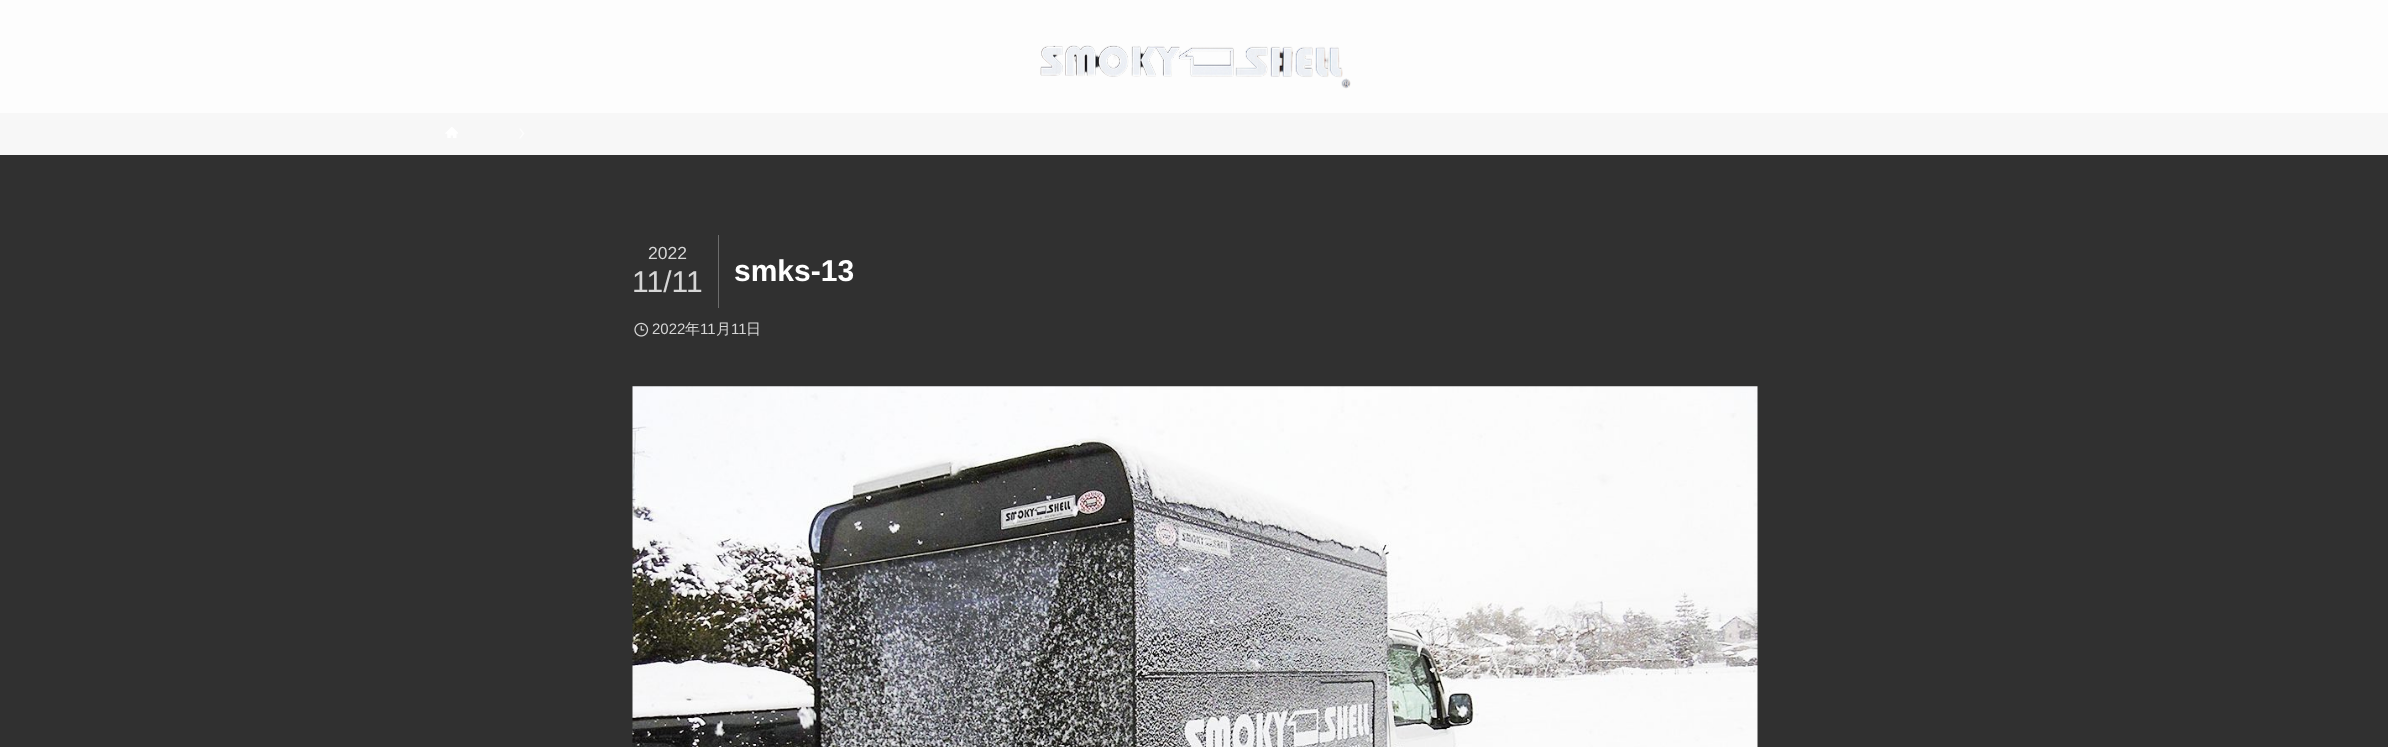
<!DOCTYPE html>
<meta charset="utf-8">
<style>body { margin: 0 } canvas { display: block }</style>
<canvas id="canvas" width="2388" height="747"></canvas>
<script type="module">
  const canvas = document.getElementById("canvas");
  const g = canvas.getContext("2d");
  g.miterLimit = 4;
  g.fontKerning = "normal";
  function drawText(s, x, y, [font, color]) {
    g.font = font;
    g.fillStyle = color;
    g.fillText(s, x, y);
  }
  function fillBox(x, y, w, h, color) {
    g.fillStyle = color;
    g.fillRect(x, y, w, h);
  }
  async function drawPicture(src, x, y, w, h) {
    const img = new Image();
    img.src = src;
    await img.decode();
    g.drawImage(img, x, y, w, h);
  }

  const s1 = ["17.5px Liberation Sans", "#D6D6D6"];
  const s2 = ["30px Liberation Sans", "#D6D6D6"];
  const s3 = ["bold 30px Liberation Sans", "#FFFFFF"];
  const s4 = ["15px Liberation Sans", "#D6D6D6"];
  const s5 = ["500 15px WenQuanYi Zen Hei", "#D6D6D6"];

  fillBox(0, 0, 2388, 747, "#303030");
  fillBox(0, 0, 2388, 113, "#FDFDFD");
  await drawPicture("pic1.png", 1040, 45, 311, 44);
  fillBox(0, 113, 2388, 42, "#F7F7F7");
  await drawPicture("pic2.png", 445, 127, 13, 11);
  g.fillStyle = "#FDFDFD";
  g.beginPath();
  g.moveTo(520.5, 128.5);
  g.lineTo(519, 128.5);
  g.lineTo(522.5, 133.5);
  g.lineTo(519, 138.5);
  g.lineTo(520.5, 138.5);
  g.lineTo(524.5, 133.5);
  g.closePath();
  g.fill();
  fillBox(718, 235, 1, 73, "#6D6D6D");
  drawText("2022", 648, 259, s1);
  drawText("11/11", 632, 292, s2);
  drawText("smks-13", 734, 281, s3);
  await drawPicture("pic3.png", 634, 322, 15, 15);
  drawText("2022", 652, 334, s4);
  drawText("年", 685, 334, s5);
  drawText("11", 700, 334, s4);
  drawText("月", 716, 334, s5);
  drawText("11", 731, 334, s4);
  drawText("日", 746, 334, s5);
  await drawPicture("pic4.png", 632, 386, 1126, 361);
</script>
